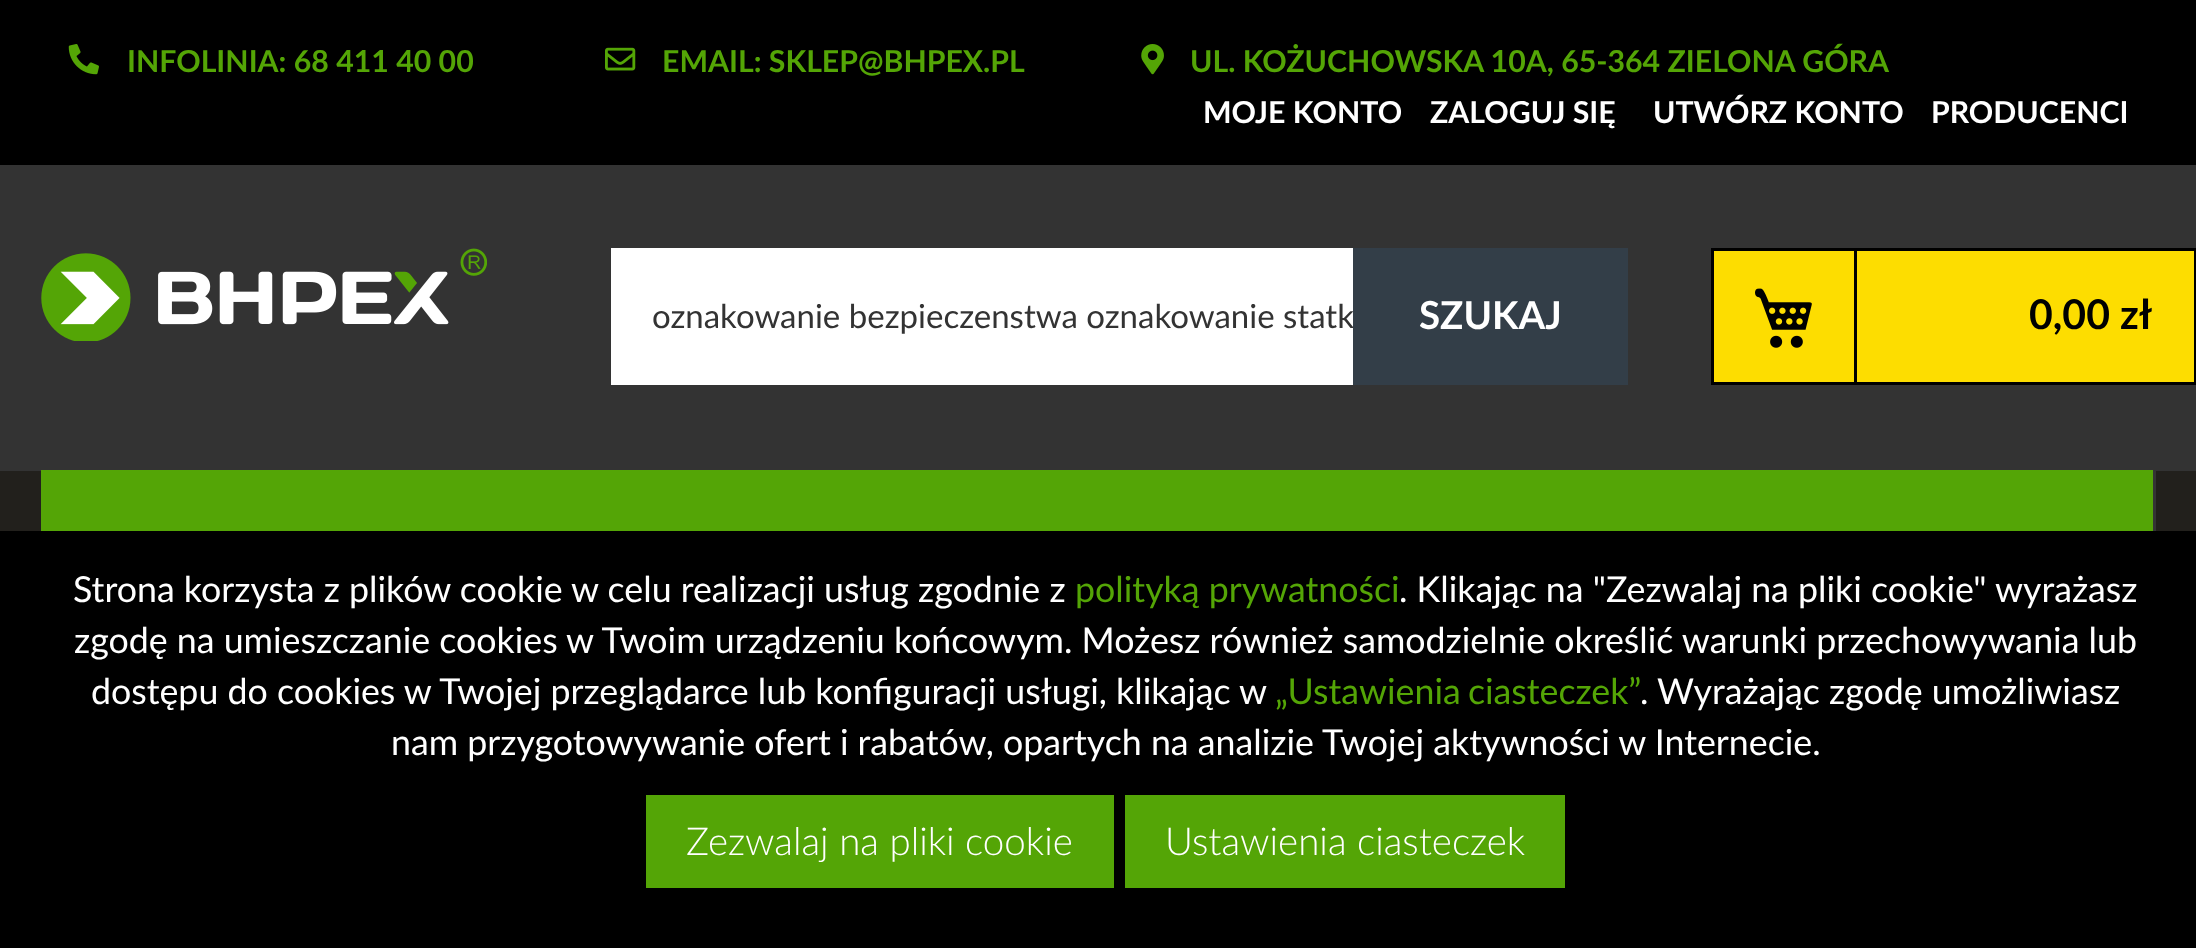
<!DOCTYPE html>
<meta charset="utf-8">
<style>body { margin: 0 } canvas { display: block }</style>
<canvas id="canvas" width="2196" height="948"></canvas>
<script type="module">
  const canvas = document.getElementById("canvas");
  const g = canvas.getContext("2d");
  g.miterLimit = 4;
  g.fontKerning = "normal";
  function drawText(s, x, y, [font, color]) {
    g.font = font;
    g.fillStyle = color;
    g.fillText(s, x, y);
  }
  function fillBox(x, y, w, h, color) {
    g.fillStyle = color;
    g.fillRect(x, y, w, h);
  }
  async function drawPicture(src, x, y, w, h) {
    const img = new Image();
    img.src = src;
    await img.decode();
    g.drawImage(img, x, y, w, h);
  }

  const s1 = ["bold 30.25px Lato", "#54A506"];
  const s2 = ["bold 30.25px Lato", "#FFFFFF"];
  const s3 = ["33px Lato", "#333333"];
  const s4 = ["bold 38.5px Lato", "#FFFFFF"];
  const s5 = ["bold 41px Lato", "#000000"];
  const s6 = ["35.75px Lato", "#FFFFFF"];
  const s7 = ["35.75px Lato", "#54A506"];
  const s8 = ["300 38.5px Lato", "#FFFFFF"];

  fillBox(0, 0, 2196, 948, "#333333");
  fillBox(0, 0, 2196, 165, "#000000");
  await drawPicture("pic1.png", 68, 44, 31, 31);
  drawText("INFOLINIA: 68 411 40 00", 127, 72, s1);
  await drawPicture("pic2.png", 605, 47, 31, 24);
  drawText("EMAIL: SKLEP@BHPEX.PL", 662, 72, s1);
  await drawPicture("pic3.png", 1141, 44, 23, 31);
  drawText("UL. KOŻUCHOWSKA 10A, 65-364 ZIELONA GÓRA", 1190, 72, s1);
  drawText("MOJE KONTO", 1203, 123, s2);
  drawText("ZALOGUJ SIĘ", 1430, 123, s2);
  drawText("UTWÓRZ KONTO", 1653, 123, s2);
  drawText("PRODUCENCI", 1931, 123, s2);
  await drawPicture("pic4.png", 41, 248, 446, 93);
  fillBox(611, 248, 742, 137, "#FFFFFF");
  drawText("oznakowanie bezpieczenstwa oznakowanie statk", 652, 328, s3);
  fillBox(1353, 248, 275, 137, "#333E48");
  drawText("SZUKAJ", 1419, 329, s4);
  g.fillStyle = "#FDDD00";
  g.beginPath();
  g.rect(1712.5, 249.5, 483, 134);
  g.fill();
  g.strokeStyle = "#000000";
  g.lineWidth = 3;
  g.stroke();
  fillBox(1854, 250, 3, 135, "#000000");
  await drawPicture("pic5.png", 1755, 288, 57, 60);
  drawText("0,00 zł", 2029, 329, s5);
  fillBox(0, 471, 2196, 60, "#22201C");
  fillBox(41, 470, 2112, 61, "#54A506");
  fillBox(2153, 470, 3, 61, "#343434");
  fillBox(0, 531, 2196, 417, "#000000");
  drawText("Strona korzysta z plików cookie w celu realizacji usług zgodnie z", 73, 602, s6);
  drawText("polityką prywatności", 1075, 602, s7);
  drawText(". Klikając na \"Zezwalaj na pliki cookie\" wyrażasz", 1399, 602, s6);
  drawText("zgodę na umieszczanie cookies w Twoim urządzeniu końcowym. Możesz również samodzielnie określić warunki przechowywania lub", 74, 653, s6);
  drawText("dostępu do cookies w Twojej przeglądarce lub konfiguracji usługi, klikając w", 91, 704, s6);
  g.wordSpacing = "-2px";
  drawText("„Ustawienia ciasteczek”", 1275, 704, s7);
  g.wordSpacing = "0px";
  drawText(". Wyrażając zgodę umożliwiasz", 1640, 704, s6);
  drawText("nam przygotowywanie ofert i rabatów, opartych na analizie Twojej aktywności w Internecie.", 391, 755, s6);
  fillBox(646, 795, 468, 93, "#54A506");
  drawText("Zezwalaj na pliki cookie", 686, 855, s8);
  fillBox(1125, 795, 440, 93, "#54A506");
  drawText("Ustawienia ciasteczek", 1165, 855, s8);
</script>
